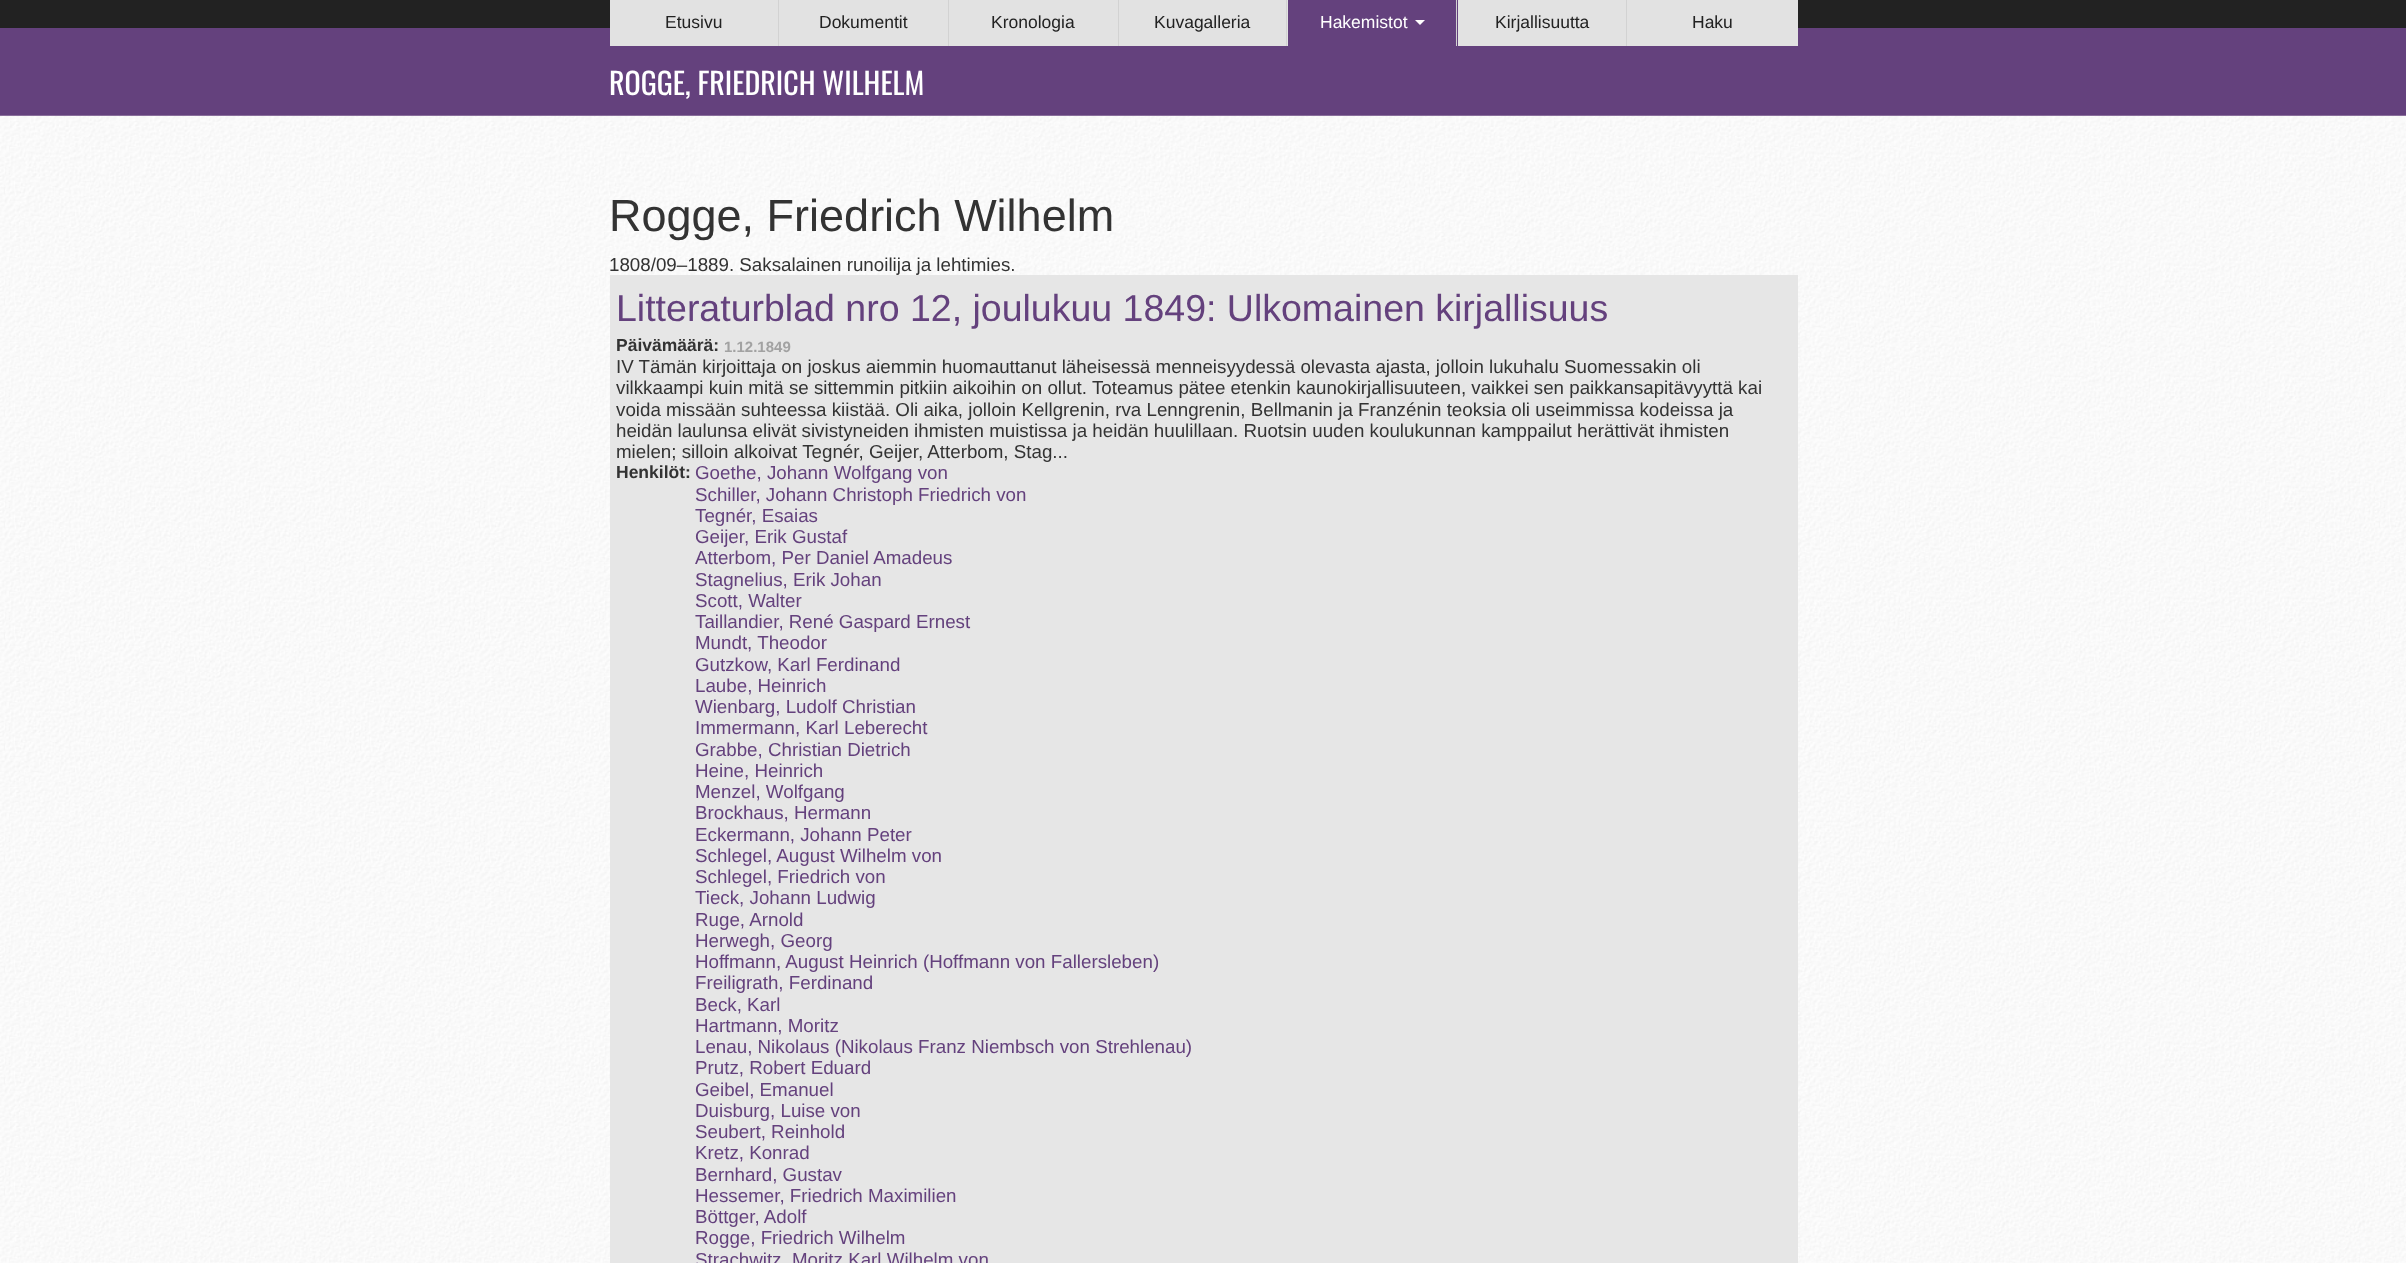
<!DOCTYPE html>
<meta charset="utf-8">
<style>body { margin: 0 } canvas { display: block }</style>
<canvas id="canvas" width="2406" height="1263"></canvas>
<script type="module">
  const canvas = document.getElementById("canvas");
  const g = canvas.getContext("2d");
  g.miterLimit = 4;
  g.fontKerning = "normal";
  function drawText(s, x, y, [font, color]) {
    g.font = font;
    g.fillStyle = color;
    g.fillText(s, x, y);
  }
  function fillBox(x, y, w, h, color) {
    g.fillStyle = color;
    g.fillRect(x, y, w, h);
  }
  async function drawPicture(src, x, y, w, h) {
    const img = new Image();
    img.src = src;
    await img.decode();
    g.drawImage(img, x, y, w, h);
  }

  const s1 = ["17.5px Liberation Sans", "#222222"];
  const s2 = ["17.5px Liberation Sans", "#FFFFFF"];
  const s3 = ["30px Oswald", "#FFFFFF"];
  const s4 = ["45px Liberation Sans", "#333333"];
  const s5 = ["18.75px Liberation Sans", "#333333"];
  const s6 = ["37.5px Liberation Sans", "#64417D"];
  const s7 = ["bold 17.5px Liberation Sans", "#333333"];
  const s8 = ["bold 15px Liberation Sans", "#A2A2A2"];
  const s9 = ["18.75px Liberation Sans", "#64417D"];

  fillBox(0, 0, 2406, 1263, "#222222");
  fillBox(0, 28, 2406, 88, "#64417D");
  fillBox(610, 0, 1188, 46, "#E2E2E2");
  fillBox(778, 0, 1, 46, "#D2D2D2");
  drawText("Etusivu", 665, 28, s1);
  fillBox(948, 0, 1, 46, "#D2D2D2");
  drawText("Dokumentit", 819, 28, s1);
  fillBox(1118, 0, 1, 46, "#D2D2D2");
  drawText("Kronologia", 991, 28, s1);
  fillBox(1286, 0, 1, 46, "#D2D2D2");
  drawText("Kuvagalleria", 1154, 28, s1);
  fillBox(1288, 0, 170, 46, "#64417D");
  fillBox(1456, 0, 1, 46, "#D2D2D2");
  drawText("Hakemistot", 1320, 28, s2);
  g.beginPath();
  g.moveTo(1415, 20);
  g.lineTo(1425, 20);
  g.lineTo(1420, 25);
  g.closePath();
  g.fill();
  fillBox(1626, 0, 1, 46, "#D2D2D2");
  drawText("Kirjallisuutta", 1495, 28, s1);
  drawText("Haku", 1692, 28, s1);
  drawText("ROGGE, FRIEDRICH WILHELM", 609, 95, s3);
  await drawPicture("pic1.png", 0, 115, 2406, 1148);
  drawText("Rogge, Friedrich Wilhelm", 609, 231, s4);
  drawText("1808/09–1889. Saksalainen runoilija ja lehtimies.", 609, 271, s5);
  fillBox(610, 275, 1188, 988, "#E6E6E6");
  drawText("Litteraturblad nro 12, joulukuu 1849: Ulkomainen kirjallisuus", 616, 321, s6);
  drawText("Päivämäärä:", 616, 351, s7);
  drawText("1.12.1849", 724, 352, s8);
  drawText("IV Tämän kirjoittaja on joskus aiemmin huomauttanut läheisessä menneisyydessä olevasta ajasta, jolloin lukuhalu Suomessakin oli", 616, 373, s5);
  drawText("vilkkaampi kuin mitä se sittemmin pitkiin aikoihin on ollut. Toteamus pätee etenkin kaunokirjallisuuteen, vaikkei sen paikkansapitävyyttä kai", 616, 394, s5);
  drawText("voida missään suhteessa kiistää. Oli aika, jolloin Kellgrenin, rva Lenngrenin, Bellmanin ja Franzénin teoksia oli useimmissa kodeissa ja", 616, 416, s5);
  drawText("heidän laulunsa elivät sivistyneiden ihmisten muistissa ja heidän huulillaan. Ruotsin uuden koulukunnan kamppailut herättivät ihmisten", 616, 437, s5);
  drawText("mielen; silloin alkoivat Tegnér, Geijer, Atterbom, Stag...", 616, 458, s5);
  drawText("Henkilöt:", 616, 478, s7);
  drawText("Goethe, Johann Wolfgang von", 695, 479, s9);
  drawText("Schiller, Johann Christoph Friedrich von", 695, 501, s9);
  drawText("Tegnér, Esaias", 695, 522, s9);
  drawText("Geijer, Erik Gustaf", 695, 543, s9);
  drawText("Atterbom, Per Daniel Amadeus", 695, 564, s9);
  drawText("Stagnelius, Erik Johan", 695, 586, s9);
  drawText("Scott, Walter", 695, 607, s9);
  drawText("Taillandier, René Gaspard Ernest", 695, 628, s9);
  drawText("Mundt, Theodor", 695, 649, s9);
  drawText("Gutzkow, Karl Ferdinand", 695, 671, s9);
  drawText("Laube, Heinrich", 695, 692, s9);
  drawText("Wienbarg, Ludolf Christian", 695, 713, s9);
  drawText("Immermann, Karl Leberecht", 695, 734, s9);
  drawText("Grabbe, Christian Dietrich", 695, 756, s9);
  drawText("Heine, Heinrich", 695, 777, s9);
  drawText("Menzel, Wolfgang", 695, 798, s9);
  drawText("Brockhaus, Hermann", 695, 819, s9);
  drawText("Eckermann, Johann Peter", 695, 841, s9);
  drawText("Schlegel, August Wilhelm von", 695, 862, s9);
  drawText("Schlegel, Friedrich von", 695, 883, s9);
  drawText("Tieck, Johann Ludwig", 695, 904, s9);
  drawText("Ruge, Arnold", 695, 926, s9);
  drawText("Herwegh, Georg", 695, 947, s9);
  drawText("Hoffmann, August Heinrich (Hoffmann von Fallersleben)", 695, 968, s9);
  drawText("Freiligrath, Ferdinand", 695, 989, s9);
  drawText("Beck, Karl", 695, 1011, s9);
  drawText("Hartmann, Moritz", 695, 1032, s9);
  drawText("Lenau, Nikolaus (Nikolaus Franz Niembsch von Strehlenau)", 695, 1053, s9);
  drawText("Prutz, Robert Eduard", 695, 1074, s9);
  drawText("Geibel, Emanuel", 695, 1096, s9);
  drawText("Duisburg, Luise von", 695, 1117, s9);
  drawText("Seubert, Reinhold", 695, 1138, s9);
  drawText("Kretz, Konrad", 695, 1159, s9);
  drawText("Bernhard, Gustav", 695, 1181, s9);
  drawText("Hessemer, Friedrich Maximilien", 695, 1202, s9);
  drawText("Böttger, Adolf", 695, 1223, s9);
  drawText("Rogge, Friedrich Wilhelm", 695, 1244, s9);
  drawText("Strachwitz, Moritz Karl Wilhelm von", 695, 1266, s9);
</script>
